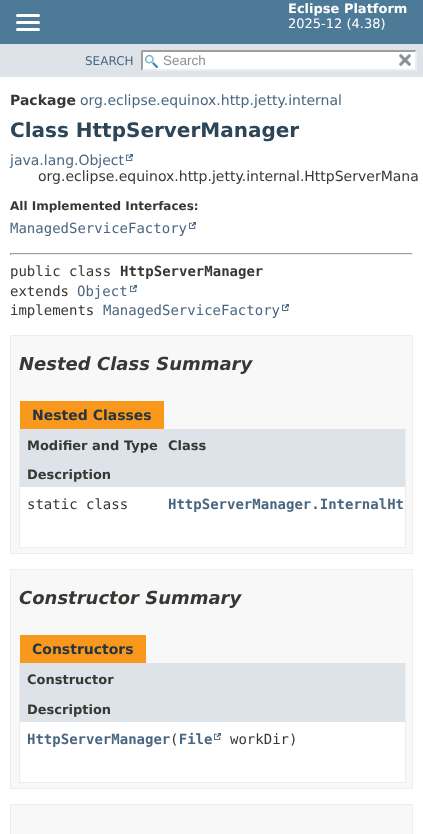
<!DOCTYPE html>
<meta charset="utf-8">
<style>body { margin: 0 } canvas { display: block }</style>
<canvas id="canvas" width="423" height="834"></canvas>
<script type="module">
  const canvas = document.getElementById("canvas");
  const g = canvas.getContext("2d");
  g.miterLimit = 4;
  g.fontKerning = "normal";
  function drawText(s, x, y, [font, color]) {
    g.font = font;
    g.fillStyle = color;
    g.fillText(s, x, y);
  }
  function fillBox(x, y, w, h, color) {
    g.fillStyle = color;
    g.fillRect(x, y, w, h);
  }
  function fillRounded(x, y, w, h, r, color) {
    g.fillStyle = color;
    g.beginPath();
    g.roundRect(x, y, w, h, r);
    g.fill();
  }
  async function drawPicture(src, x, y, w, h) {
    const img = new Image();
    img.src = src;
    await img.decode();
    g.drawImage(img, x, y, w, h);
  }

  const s1 = ["bold 13px DejaVu Sans", "#FFFFFF"];
  const s2 = ["13px DejaVu Sans", "#FFFFFF"];
  const s3 = ["12px DejaVu Sans", "#4A6782"];
  const s4 = ["13.5px Liberation Sans", "#909090"];
  const s5 = ["bold 14px DejaVu Sans", "#353833"];
  const s6 = ["14px DejaVu Sans", "#4A6782"];
  const s7 = ["bold 20px DejaVu Sans", "#2C4557"];
  const s8 = ["14px DejaVu Sans", "#353833"];
  const s9 = ["bold 12px DejaVu Sans", "#353833"];
  const s10 = ["14px DejaVu Sans Mono", "#4A6782"];
  const s11 = ["14px DejaVu Sans Mono", "#353833"];
  const s12 = ["bold 14px DejaVu Sans Mono", "#353833"];
  const s13 = ["italic bold 18px DejaVu Sans", "#353833"];
  const s14 = ["bold 14px DejaVu Sans", "#253441"];
  const s15 = ["bold 13px DejaVu Sans", "#353833"];
  const s16 = ["bold 14px DejaVu Sans Mono", "#4A6782"];

  fillBox(0, 0, 423, 834, "#FFFFFF");
  fillBox(0, 0, 423, 44, "#4D7A97");
  fillRounded(16, 14, 24, 3, 1.5, "#FFFFFF");
  fillRounded(16, 21, 24, 3, 1.5, "#FFFFFF");
  fillRounded(16, 28, 24, 3, 1.5, "#FFFFFF");
  drawText("Eclipse Platform", 288, 13, s1);
  drawText("2025-12 (4.38)", 288, 28, s2);
  fillBox(0, 44, 423, 33, "#DEE3E9");
  drawText("SEARCH", 85, 65, s3);
  fillBox(141, 50, 276, 21, "#FFFFFF");
  await drawPicture("pic1.png", 145, 55, 13, 13);
  g.fillStyle = "#9E9E9E";
  g.beginPath();
  g.moveTo(141, 50);
  g.lineTo(417, 50);
  g.lineTo(415, 52);
  g.lineTo(143, 52);
  g.closePath();
  g.fill();
  g.fillStyle = "#EDEDED";
  g.beginPath();
  g.moveTo(417, 50);
  g.lineTo(417, 71);
  g.lineTo(415, 69);
  g.lineTo(415, 52);
  g.closePath();
  g.fill();
  g.beginPath();
  g.moveTo(417, 71);
  g.lineTo(141, 71);
  g.lineTo(143, 69);
  g.lineTo(415, 69);
  g.closePath();
  g.fill();
  g.fillStyle = "#9E9E9E";
  g.beginPath();
  g.moveTo(141, 71);
  g.lineTo(141, 50);
  g.lineTo(143, 52);
  g.lineTo(143, 69);
  g.closePath();
  g.fill();
  drawText("Search", 163, 65, s4);
  await drawPicture("pic2.png", 399, 53, 12, 13);
  drawText("Package", 10, 105, s5);
  drawText("org.eclipse.equinox.http.jetty.internal", 80, 105, s6);
  drawText("Class HttpServerManager", 10, 137, s7);
  drawText("java.lang.Object", 10, 165, s6);
  await drawPicture("pic3.png", 126, 154, 7, 7);
  drawText("org.eclipse.equinox.http.jetty.internal.HttpServerMana", 38, 181, s8);
  drawText("All Implemented Interfaces:", 10, 210, s9);
  drawText("ManagedServiceFactory", 10, 233, s10);
  await drawPicture("pic3.png", 189, 222, 7, 7);
  fillBox(10, 253, 403, 1, "#9F9F9F");
  fillBox(412, 253, 1, 2, "#EEEEEE");
  fillBox(10, 254, 403, 1, "#EEEEEE");
  fillBox(10, 253, 1, 2, "#9F9F9F");
  drawText("public class", 10, 276, s11);
  drawText("HttpServerManager", 120, 276, s12);
  drawText("extends", 10, 296, s11);
  drawText("Object", 77, 296, s10);
  await drawPicture("pic3.png", 130, 285, 7, 7);
  drawText("implements", 10, 315, s11);
  drawText("ManagedServiceFactory", 103, 315, s10);
  await drawPicture("pic3.png", 282, 304, 7, 7);
  g.fillStyle = "#F8F8F8";
  g.beginPath();
  g.rect(10.5, 335.5, 402, 218);
  g.fill();
  g.strokeStyle = "#EDEDED";
  g.stroke();
  drawText("Nested Class Summary", 19, 370, s13);
  fillBox(20, 401, 144, 28, "#F8981D");
  drawText("Nested Classes", 32, 420, s14);
  fillBox(405, 429, 1, 119, "#EDEDED");
  fillBox(19, 547, 387, 1, "#EDEDED");
  fillBox(19, 429, 1, 119, "#EDEDED");
  fillBox(20, 429, 385, 58, "#DEE3E9");
  drawText("Modifier and Type", 27, 450, s15);
  drawText("Class", 168, 450, s15);
  drawText("Description", 27, 479, s15);
  fillBox(20, 487, 385, 60, "#FFFFFF");
  drawText("static class", 27, 509, s11);
  drawText("HttpServerManager.InternalHt", 168, 509, s16);
  g.fillStyle = "#F8F8F8";
  g.beginPath();
  g.rect(10.5, 569.5, 402, 219);
  g.fill();
  g.stroke();
  drawText("Constructor Summary", 19, 604, s13);
  fillBox(20, 635, 126, 28, "#F8981D");
  drawText("Constructors", 32, 654, s14);
  fillBox(405, 663, 1, 120, "#EDEDED");
  fillBox(19, 782, 387, 1, "#EDEDED");
  fillBox(19, 663, 1, 120, "#EDEDED");
  fillBox(20, 663, 385, 59, "#DEE3E9");
  drawText("Constructor", 27, 684, s15);
  drawText("Description", 27, 714, s15);
  fillBox(20, 722, 385, 60, "#FFFFFF");
  drawText("HttpServerManager File", 27, 744, s16);
  drawText("(", 170, 744, s11);
  await drawPicture("pic3.png", 214, 733, 7, 7);
  drawText("workDir)", 230, 744, s11);
  g.fillStyle = "#F8F8F8";
  g.beginPath();
  g.rect(10.5, 804.5, 402, 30);
  g.fill();
  g.stroke();
</script>
